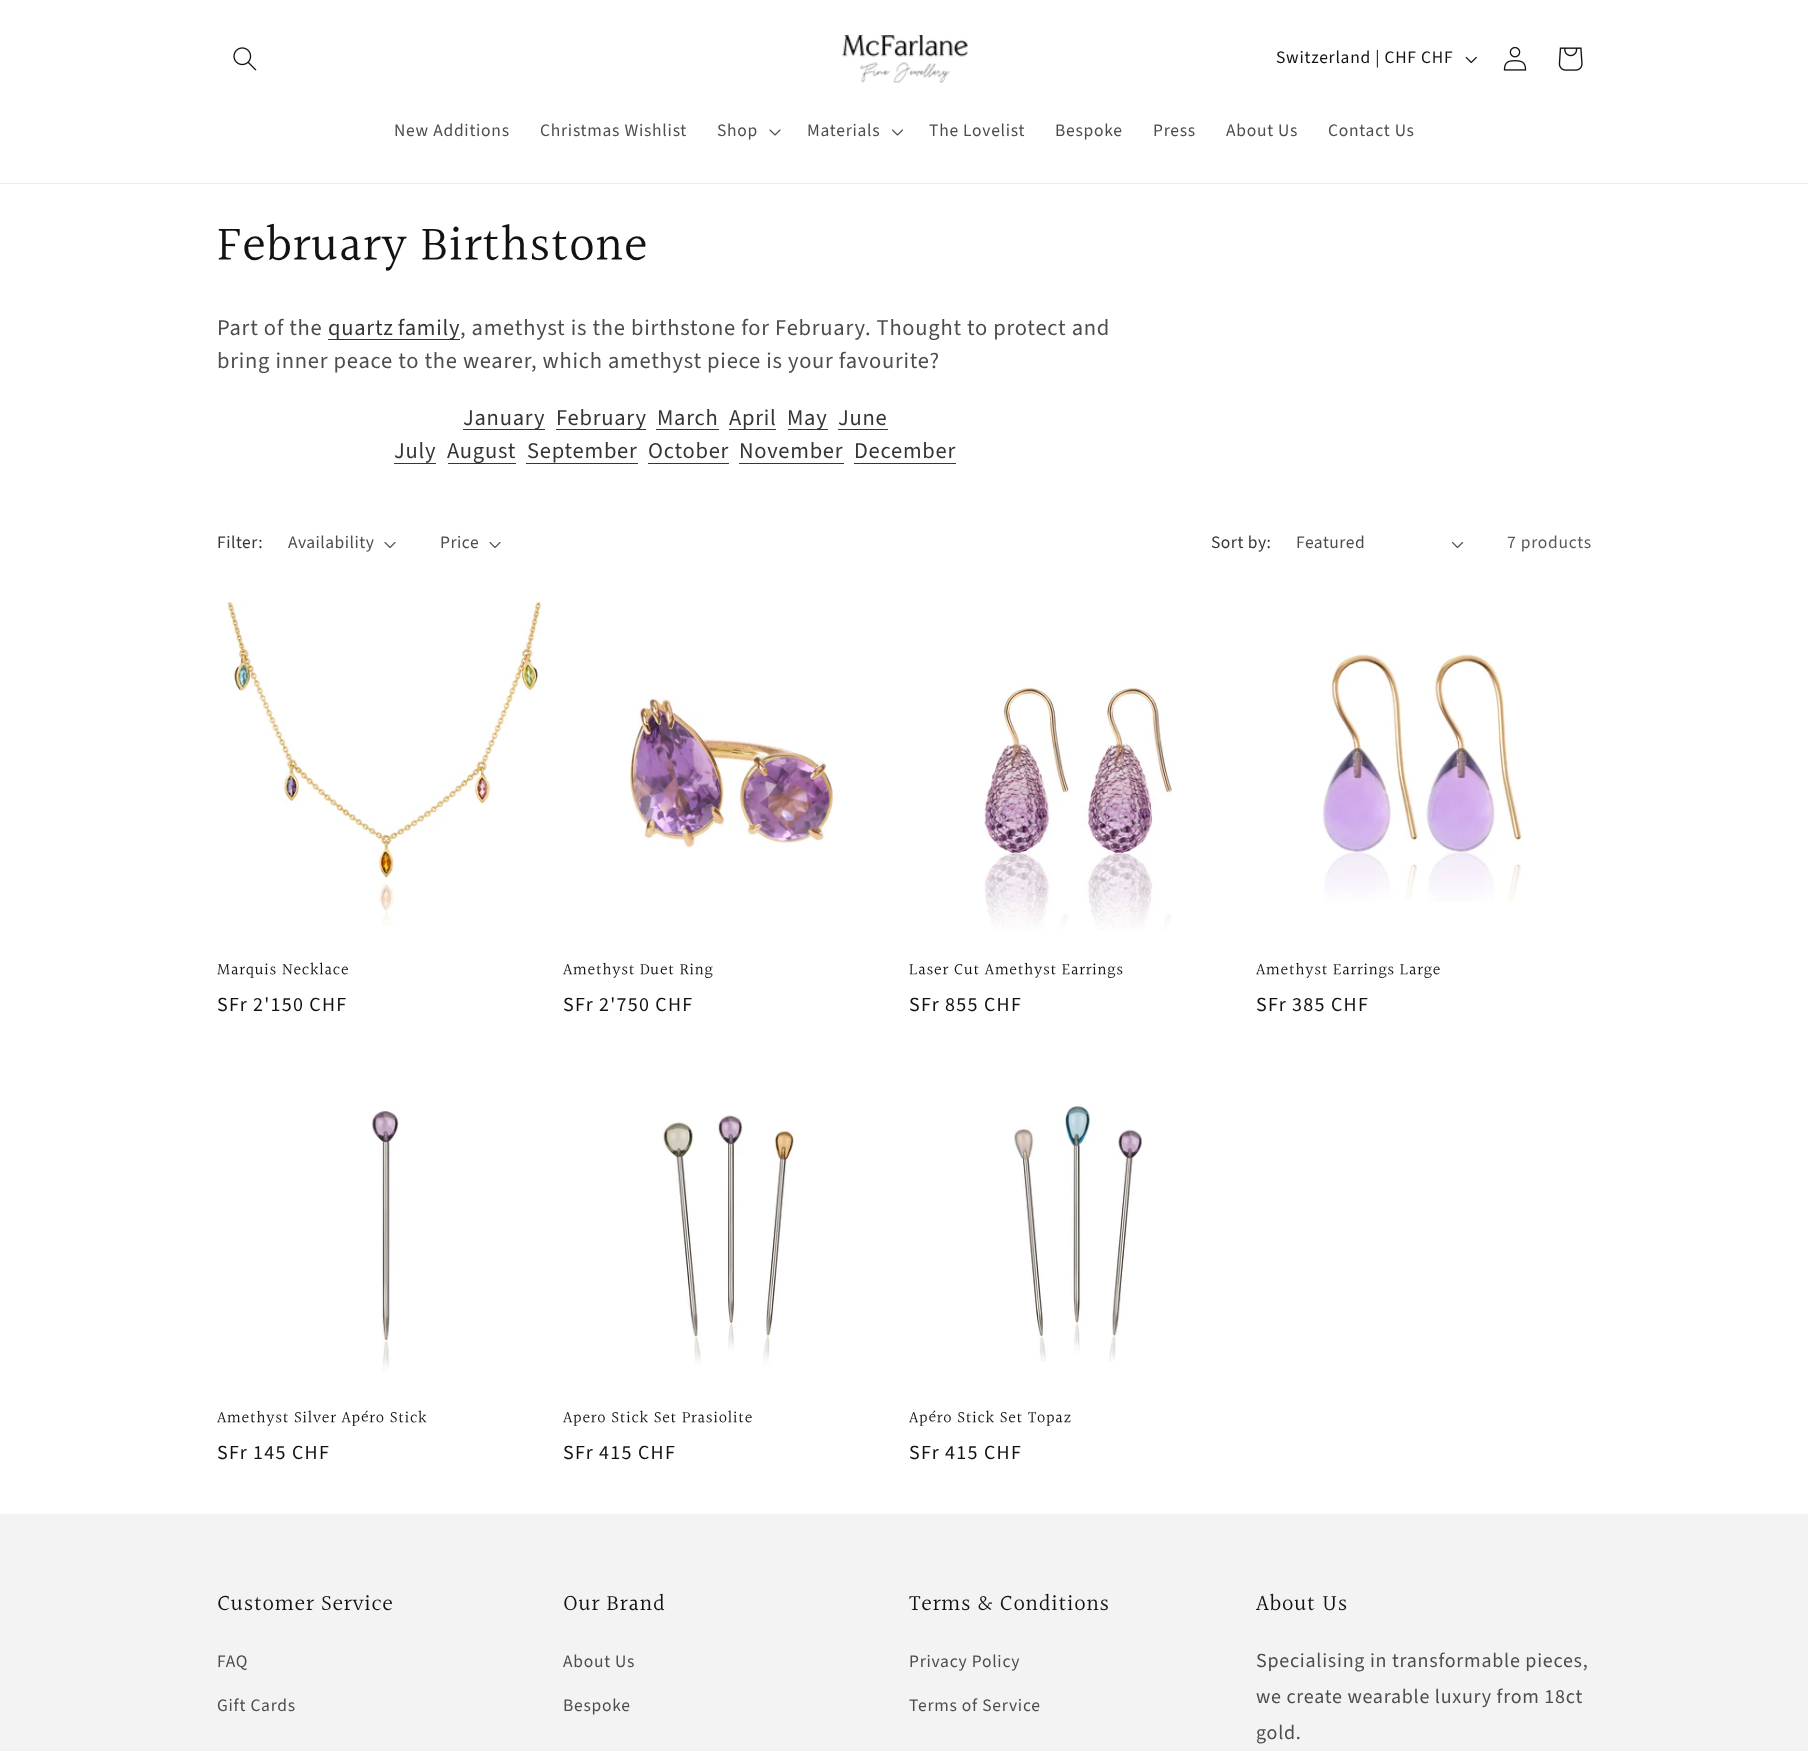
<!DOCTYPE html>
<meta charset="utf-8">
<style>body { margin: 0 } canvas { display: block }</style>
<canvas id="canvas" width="1808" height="1751"></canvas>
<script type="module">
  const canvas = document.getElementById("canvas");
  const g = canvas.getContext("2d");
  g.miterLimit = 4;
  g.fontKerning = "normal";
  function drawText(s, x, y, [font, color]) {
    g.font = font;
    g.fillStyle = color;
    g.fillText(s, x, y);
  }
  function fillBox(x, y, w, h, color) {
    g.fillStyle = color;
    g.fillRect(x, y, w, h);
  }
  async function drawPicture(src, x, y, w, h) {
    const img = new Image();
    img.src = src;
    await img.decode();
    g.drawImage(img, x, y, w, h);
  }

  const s1 = ["17.5px Source Sans Pro", "#121212"];
  const s2 = ["17.5px Source Sans Pro", "#4D4D4D"];
  const s3 = ["50px Halant", "#121212"];
  const s4 = ["22.5px Source Sans Pro", "#4D4D4D"];
  const s5 = ["22.5px Source Sans Pro", "#353535"];
  const s6 = ["17.5px Source Sans Pro", "#353535"];
  const s7 = ["17.5px Source Sans Pro", "#595959"];
  const s8 = ["16.25px Halant", "#121212"];
  const s9 = ["20px Source Sans Pro", "#121212"];
  const s10 = ["22.5px Halant", "#121212"];
  const s11 = ["20px Source Sans Pro", "#4D4D4D"];

  fillBox(0, 0, 1808, 1751, "#FFFFFF");
  fillBox(0, 183, 1808, 1, "#ECECEC");
  await drawPicture("pic1.png", 233, 47, 24, 24);
  await drawPicture("pic2.png", 842, 35, 126, 48);
  g.letterSpacing = "0.75px";
  drawText("Switzerland | CHF CHF", 1276, 63, s1);
  await drawPicture("pic3.png", 1465, 56, 12, 8);
  await drawPicture("pic4.png", 1503, 46, 24, 25);
  await drawPicture("pic5.png", 1558, 47, 25, 24);
  drawText("New Additions", 394, 136, s2);
  drawText("Christmas Wishlist", 540, 136, s2);
  drawText("Shop", 717, 136, s2);
  await drawPicture("pic6.png", 769, 129, 12, 7);
  drawText("Materials", 807, 136, s2);
  await drawPicture("pic7.png", 892, 129, 11, 7);
  drawText("The Lovelist", 929, 136, s2);
  drawText("Bespoke", 1055, 136, s2);
  drawText("Press", 1153, 136, s2);
  drawText("About Us", 1226, 136, s2);
  drawText("Contact Us", 1328, 136, s2);
  drawText("February Birthstone", 217, 262, s3);
  drawText("Part of the", 217, 335, s4);
  fillBox(328, 339, 132, 1, "#363636");
  g.wordSpacing = "-1px";
  drawText("quartz family", 328, 335, s5);
  g.wordSpacing = "0px";
  drawText(", amethyst is the birthstone for February. Thought to protect and", 460, 335, s4);
  drawText("bring inner peace to the wearer, which amethyst piece is your favourite?", 217, 368, s4);
  fillBox(463, 429, 82, 1, "#363636");
  drawText("January", 463, 425, s5);
  fillBox(556, 429, 90, 1, "#363636");
  drawText("February", 556, 425, s5);
  drawText("March", 657, 425, s5);
  fillBox(656, 429, 63, 1, "#363636");
  fillBox(729, 429, 47, 1, "#363636");
  drawText("April", 729, 425, s5);
  fillBox(788, 429, 40, 1, "#363636");
  drawText("May", 787, 425, s5);
  drawText("June", 838, 425, s5);
  fillBox(838, 429, 50, 1, "#363636");
  drawText("July", 394, 458, s5);
  fillBox(394, 463, 42, 1, "#363636");
  fillBox(448, 463, 68, 1, "#363636");
  drawText("August", 447, 458, s5);
  drawText("September", 527, 458, s5);
  fillBox(526, 463, 112, 1, "#363636");
  drawText("October", 648, 458, s5);
  fillBox(648, 463, 81, 1, "#363636");
  drawText("November", 739, 458, s5);
  fillBox(739, 463, 105, 1, "#363636");
  drawText("December", 854, 458, s5);
  fillBox(854, 463, 102, 1, "#363636");
  g.letterSpacing = "0.5px";
  drawText("Filter:", 217, 548, s6);
  drawText("Availability", 288, 548, s2);
  await drawPicture("pic8.png", 384, 542, 12, 6);
  drawText("Price", 440, 548, s2);
  await drawPicture("pic8.png", 489, 542, 12, 6);
  drawText("Sort by:", 1211, 548, s6);
  drawText("Featured", 1296, 548, s2);
  await drawPicture("pic9.png", 1451, 541, 13, 8);
  g.letterSpacing = "0.75px";
  drawText("7 products", 1507, 548, s7);
  await drawPicture("pic10.png", 226, 602, 319, 324);
  drawText("Marquis Necklace", 217, 975, s8);
  g.letterSpacing = "1.25px";
  drawText("SFr 2'150 CHF", 217, 1011, s9);
  await drawPicture("pic11.png", 628, 698, 206, 151);
  g.letterSpacing = "0.75px";
  drawText("Amethyst Duet Ring", 563, 975, s8);
  g.letterSpacing = "1.25px";
  drawText("SFr 2'750 CHF", 563, 1011, s9);
  await drawPicture("pic12.png", 984, 685, 189, 246);
  g.letterSpacing = "0.75px";
  drawText("Laser Cut Amethyst Earrings", 909, 975, s8);
  g.letterSpacing = "1.25px";
  drawText("SFr 855 CHF", 909, 1011, s9);
  await drawPicture("pic13.png", 1322, 654, 203, 248);
  g.letterSpacing = "0.75px";
  drawText("Amethyst Earrings Large", 1256, 975, s8);
  g.letterSpacing = "1.25px";
  drawText("SFr 385 CHF", 1256, 1011, s9);
  await drawPicture("pic14.png", 371, 1111, 28, 261);
  g.letterSpacing = "0.75px";
  drawText("Amethyst Silver Apéro Stick", 217, 1423, s8);
  g.letterSpacing = "1.25px";
  drawText("SFr 145 CHF", 217, 1459, s9);
  await drawPicture("pic15.png", 661, 1115, 134, 250);
  g.letterSpacing = "0.75px";
  drawText("Apero Stick Set Prasiolite", 563, 1423, s8);
  g.letterSpacing = "1.25px";
  drawText("SFr 415 CHF", 563, 1459, s9);
  await drawPicture("pic16.png", 1014, 1104, 128, 258);
  g.letterSpacing = "0.75px";
  drawText("Apéro Stick Set Topaz", 909, 1423, s8);
  g.letterSpacing = "1.25px";
  drawText("SFr 415 CHF", 909, 1459, s9);
  fillBox(0, 1514, 1808, 237, "#F3F3F3");
  g.letterSpacing = "0.75px";
  drawText("Customer Service", 217, 1611, s10);
  drawText("FAQ", 217, 1667, s2);
  drawText("Gift Cards", 217, 1711, s2);
  drawText("Our Brand", 563, 1611, s10);
  drawText("About Us", 563, 1667, s2);
  drawText("Bespoke", 563, 1711, s2);
  drawText("Terms & Conditions", 909, 1611, s10);
  drawText("Privacy Policy", 909, 1667, s2);
  drawText("Terms of Service", 909, 1711, s2);
  drawText("About Us", 1256, 1611, s10);
  drawText("Specialising in transformable pieces,", 1256, 1667, s11);
  drawText("we create wearable luxury from 18ct", 1256, 1703, s11);
  drawText("gold.", 1256, 1739, s11);
</script>
